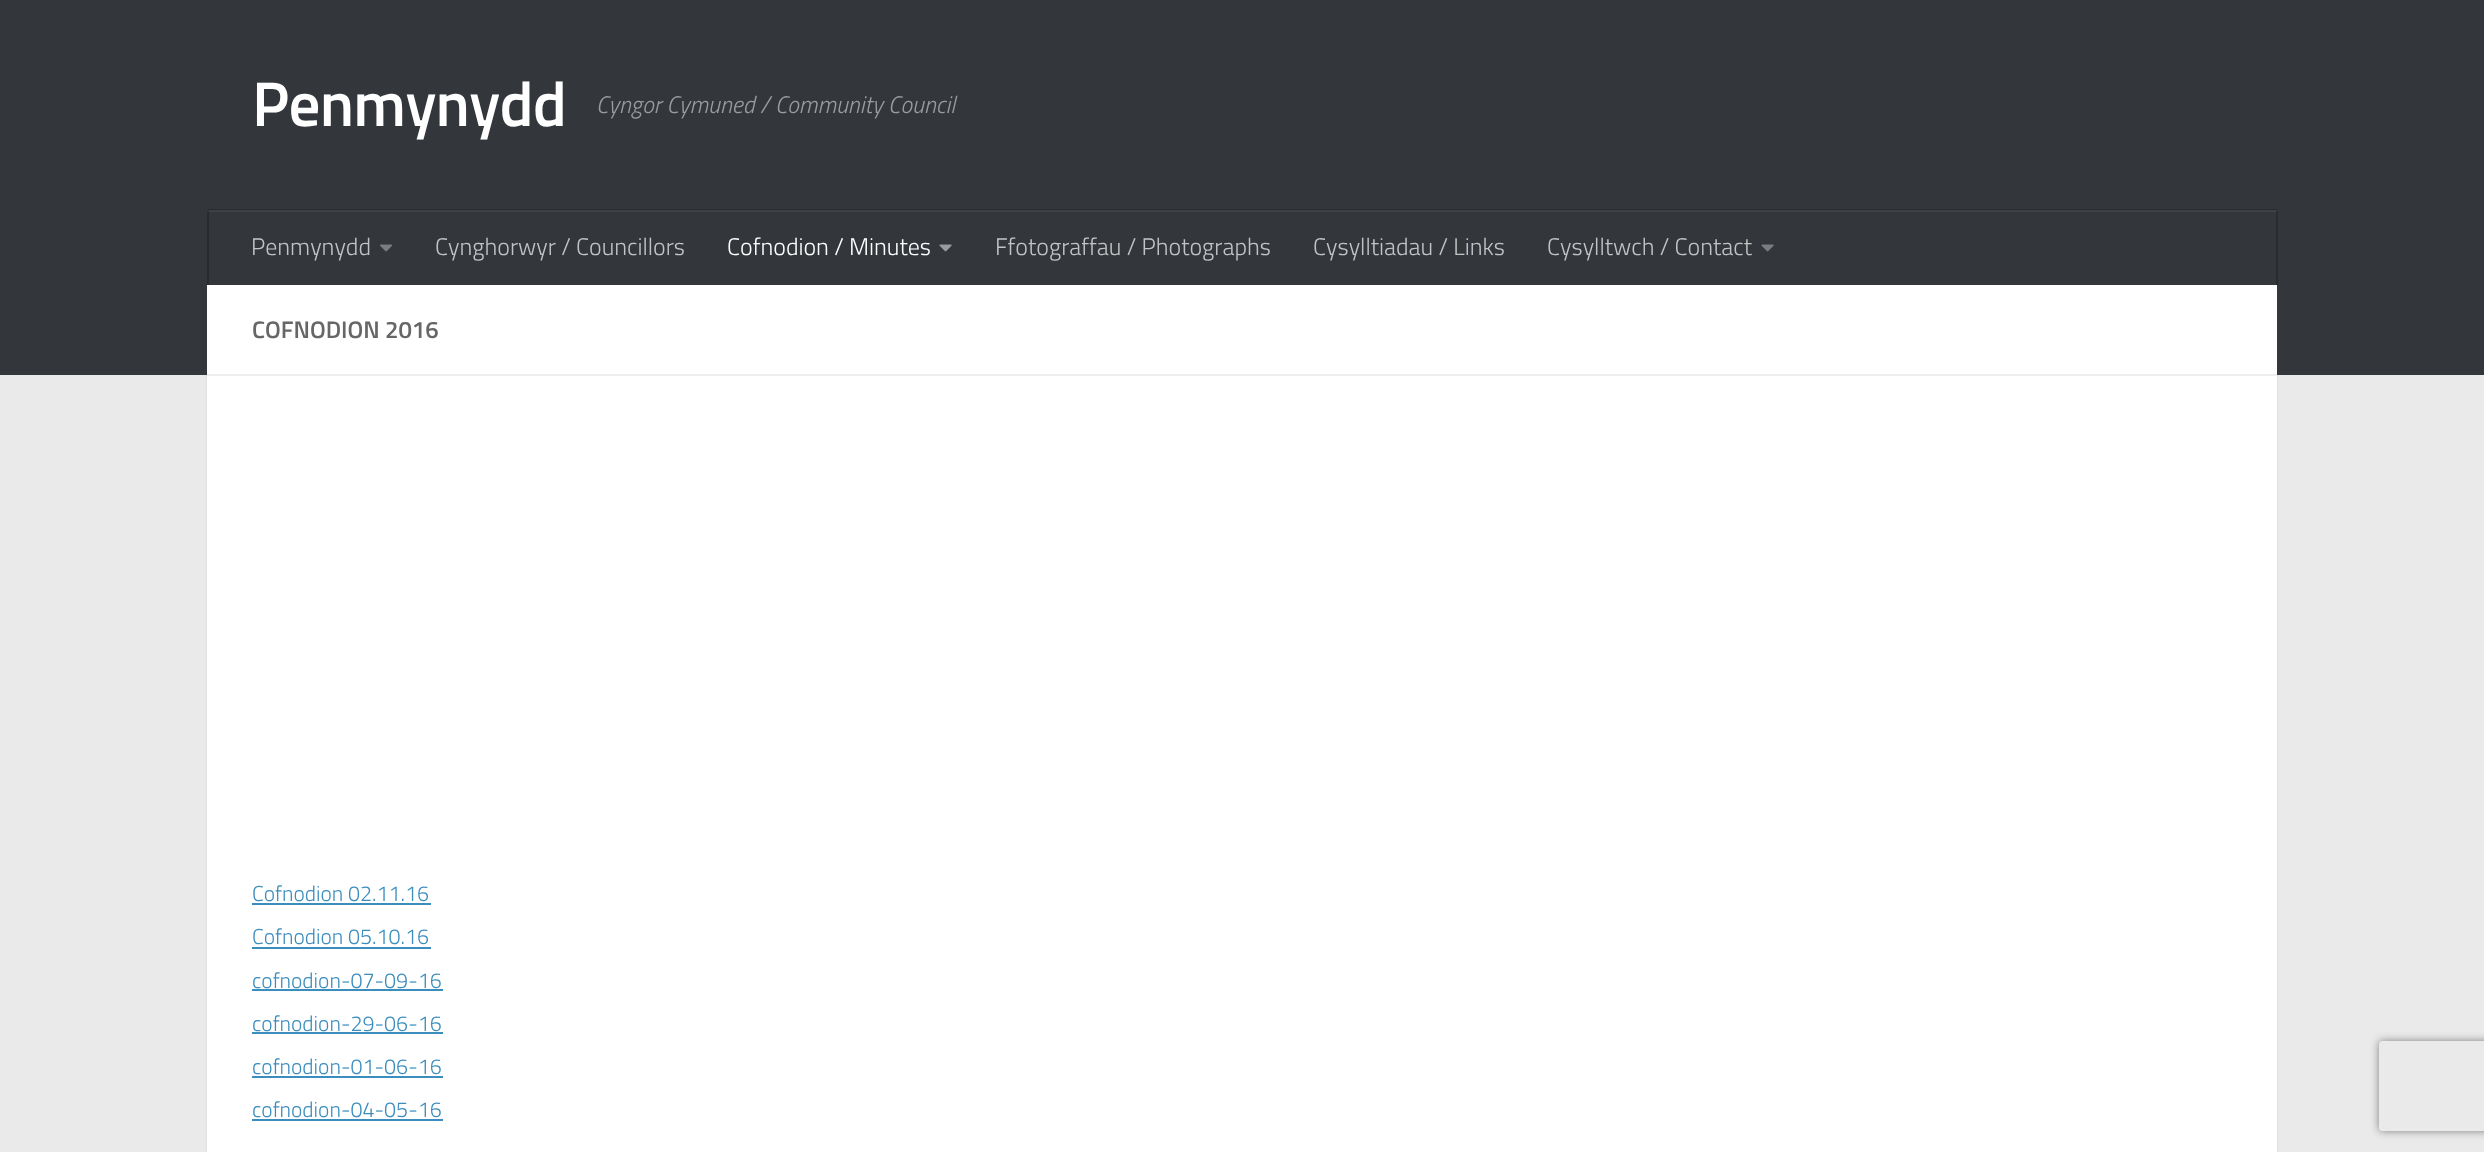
<!DOCTYPE html>
<meta charset="utf-8">
<style>body { margin: 0 } canvas { display: block }</style>
<canvas id="canvas" width="2484" height="1152"></canvas>
<script type="module">
  const canvas = document.getElementById("canvas");
  const g = canvas.getContext("2d");
  g.miterLimit = 4;
  g.fontKerning = "normal";
  function drawText(s, x, y, [font, color]) {
    g.font = font;
    g.fillStyle = color;
    g.fillText(s, x, y);
  }
  function fillBox(x, y, w, h, color) {
    g.fillStyle = color;
    g.fillRect(x, y, w, h);
  }
  async function drawPicture(src, x, y, w, h) {
    const img = new Image();
    img.src = src;
    await img.decode();
    g.drawImage(img, x, y, w, h);
  }

  const s1 = ["600 63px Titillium", "#FFFFFF"];
  const s2 = ["italic 300 24px Titillium", "#999B9D"];
  const s3 = ["300 24px Titillium", "#C2C3C4"];
  const s4 = ["300 24px Titillium", "#FFFFFF"];
  const s5 = ["600 24px Titillium", "#666666"];
  const s6 = ["300 21.5px Titillium", "#3B8DBD"];

  fillBox(0, 0, 2484, 1152, "#EAEAEA");
  g.fillStyle = "rgba(0, 0, 0, 0.1)";
  g.filter = "blur(1px)";
  g.beginPath();
  g.rect(207, 287, 2070, 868);
  g.fill();
  g.filter = "none";
  fillBox(0, 0, 2484, 375, "#33363B");
  fillBox(207, 210, 2070, 2, "#3D4045");
  g.letterSpacing = "-0.75px";
  drawText("Penmynydd", 252, 126, s1);
  g.letterSpacing = "0px";
  drawText("Cyngor Cymuned / Community Council", 596, 113, s2);
  fillBox(207, 209, 2070, 1, "#292B2F");
  fillBox(2276, 210, 2, 75, "#292B2F");
  fillBox(2276, 210, 1, 2, "#343639");
  fillBox(207, 210, 2, 75, "#292B2F");
  fillBox(207, 210, 2, 2, "#343639");
  drawText("Penmynydd", 251, 255, s3);
  await drawPicture("pic1.png", 380, 244, 13, 8);
  drawText("Cynghorwyr / Councillors", 435, 255, s3);
  drawText("Cofnodion / Minutes", 727, 255, s4);
  await drawPicture("pic2.png", 939, 244, 13, 8);
  drawText("Ffotograffau / Photographs", 995, 255, s3);
  drawText("Cysylltiadau / Links", 1313, 255, s3);
  drawText("Cysylltwch / Contact", 1547, 255, s3);
  await drawPicture("pic3.png", 1761, 244, 13, 8);
  fillBox(207, 285, 2070, 867, "#FFFFFF");
  fillBox(207, 374, 2070, 2, "#EEEEEE");
  drawText("COFNODION 2016", 252, 338, s5);
  drawText("Cofnodion 02.11.16", 252, 901, s6);
  fillBox(252, 903, 179, 2, "#3B8DBD");
  drawText("Cofnodion 05.10.16", 252, 944, s6);
  fillBox(252, 947, 179, 2, "#3B8DBD");
  drawText("cofnodion-07-09-16", 252, 988, s6);
  fillBox(252, 989, 191, 2, "#3B8DBD");
  drawText("cofnodion-29-06-16", 252, 1031, s6);
  fillBox(252, 1032, 191, 2, "#3B8DBD");
  drawText("cofnodion-01-06-16", 252, 1074, s6);
  fillBox(252, 1076, 191, 2, "#3B8DBD");
  drawText("cofnodion-04-05-16", 252, 1117, s6);
  fillBox(252, 1119, 191, 2, "#3B8DBD");
  g.save();
  g.beginPath();
  g.moveTo(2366, 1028);
  g.lineTo(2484, 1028);
  g.lineTo(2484, 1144);
  g.lineTo(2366, 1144);
  g.closePath();
  g.moveTo(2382, 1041);
  g.lineTo(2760, 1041);
  g.bezierCurveTo(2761.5, 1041, 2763, 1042.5, 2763, 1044);
  g.lineTo(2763, 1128);
  g.bezierCurveTo(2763, 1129.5, 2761.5, 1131, 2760, 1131);
  g.lineTo(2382, 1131);
  g.bezierCurveTo(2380.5, 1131, 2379, 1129.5, 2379, 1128);
  g.lineTo(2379, 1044);
  g.bezierCurveTo(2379, 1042.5, 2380.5, 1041, 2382, 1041);
  g.closePath();
  g.clip("evenodd");
  g.fillStyle = "#808080";
  g.filter = "blur(4px)";
  g.beginPath();
  g.roundRect(2379, 1041, 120, 90, 3);
  g.fill();
  g.filter = "none";
  g.restore();
</script>
